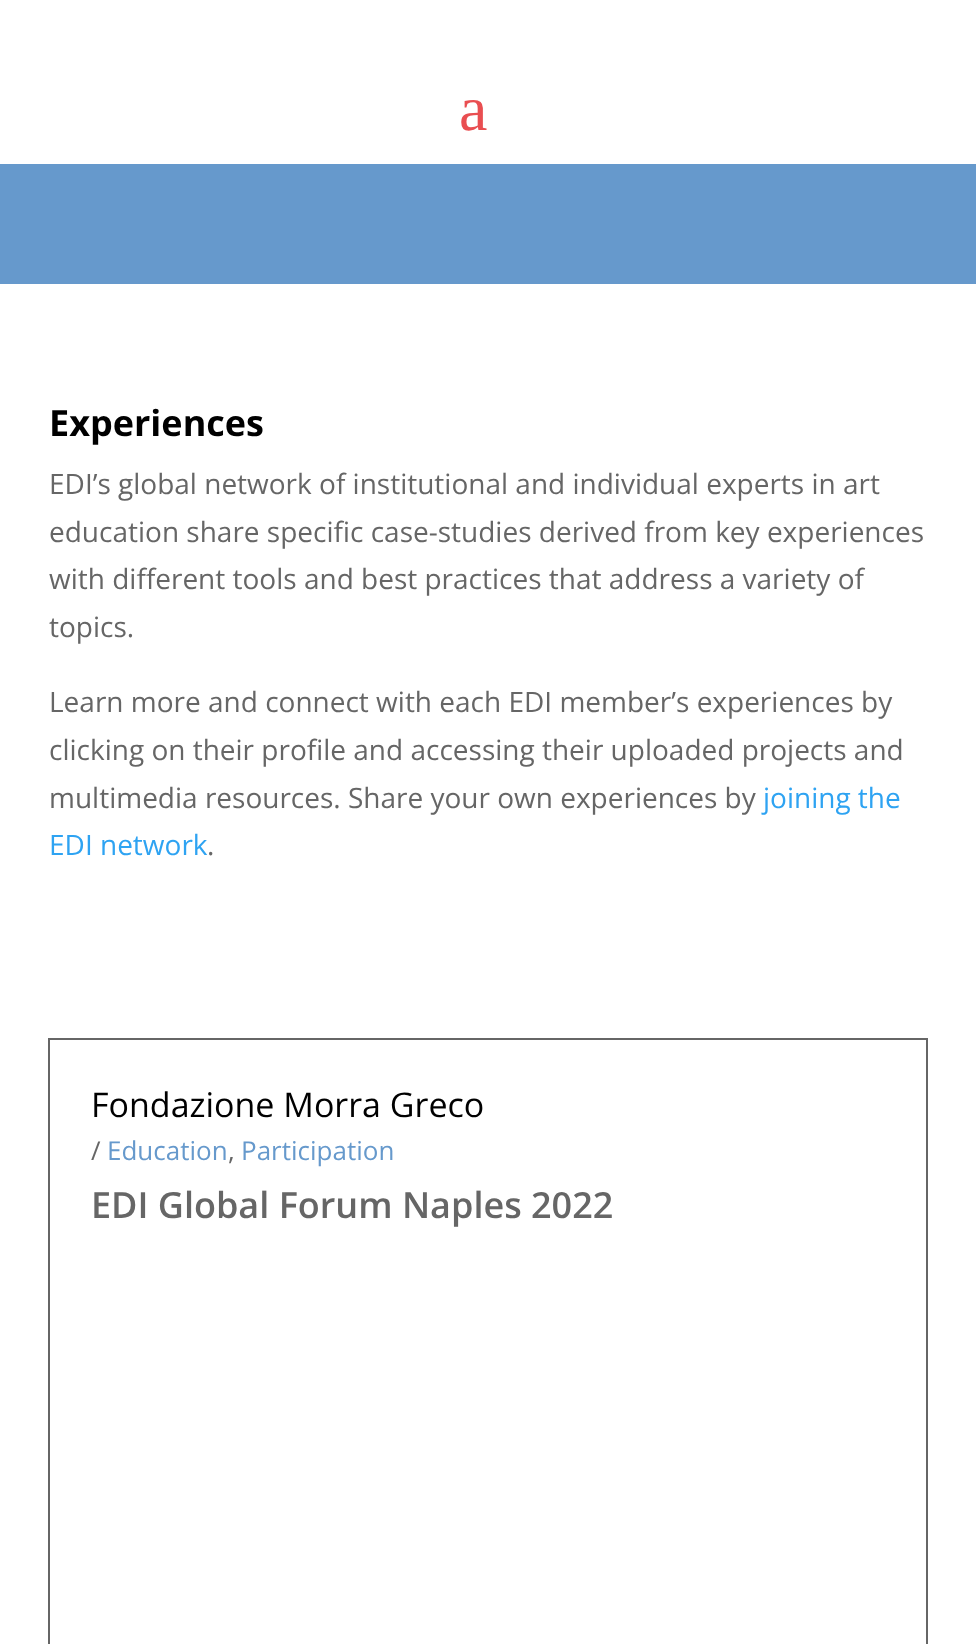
<!DOCTYPE html>
<meta charset="utf-8">
<style>body { margin: 0 } canvas { display: block }</style>
<canvas id="canvas" width="976" height="1644"></canvas>
<script type="module">
  const canvas = document.getElementById("canvas");
  const g = canvas.getContext("2d");
  g.miterLimit = 4;
  g.fontKerning = "normal";
  function drawText(s, x, y, [font, color]) {
    g.font = font;
    g.fillStyle = color;
    g.fillText(s, x, y);
  }
  function fillBox(x, y, w, h, color) {
    g.fillStyle = color;
    g.fillRect(x, y, w, h);
  }

  const s1 = ["64px Liberation Serif", "#E94E51"];
  const s2 = ["bold 36px Open Sans", "#000000"];
  const s3 = ["28px Open Sans", "#666666"];
  const s4 = ["28px Open Sans", "#2EA3F2"];
  const s5 = ["34px Open Sans", "#000000"];
  const s6 = ["26px Open Sans", "#666666"];
  const s7 = ["26px Open Sans", "#6699CC"];
  const s8 = ["600 36px Open Sans", "#666666"];

  fillBox(0, 0, 976, 1644, "#FFFFFF");
  drawText("a", 459, 130, s1);
  fillBox(0, 164, 976, 120, "#6699CC");
  drawText("Experiences", 49, 436, s2);
  drawText("EDI’s global network of institutional and individual experts in art", 49, 494, s3);
  drawText("education share specific case-studies derived from key experiences", 49, 542, s3);
  drawText("with different tools and best practices that address a variety of", 49, 589, s3);
  drawText("topics.", 49, 637, s3);
  drawText("Learn more and connect with each EDI member’s experiences by", 49, 712, s3);
  drawText("clicking on their profile and accessing their uploaded projects and", 49, 760, s3);
  drawText("multimedia resources. Share your own experiences by", 49, 808, s3);
  drawText("joining the", 763, 808, s4);
  drawText("EDI network", 49, 855, s4);
  drawText(".", 207, 855, s3);
  g.strokeStyle = "#666666";
  g.lineWidth = 2;
  g.strokeRect(49, 1039, 878, 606);
  drawText("Fondazione Morra Greco", 91, 1117, s5);
  drawText("/", 91, 1160, s6);
  drawText("Education", 107, 1160, s7);
  drawText(",", 228, 1160, s6);
  drawText("Participation", 241, 1160, s7);
  drawText("EDI Global Forum Naples 2022", 91, 1218, s8);
</script>
